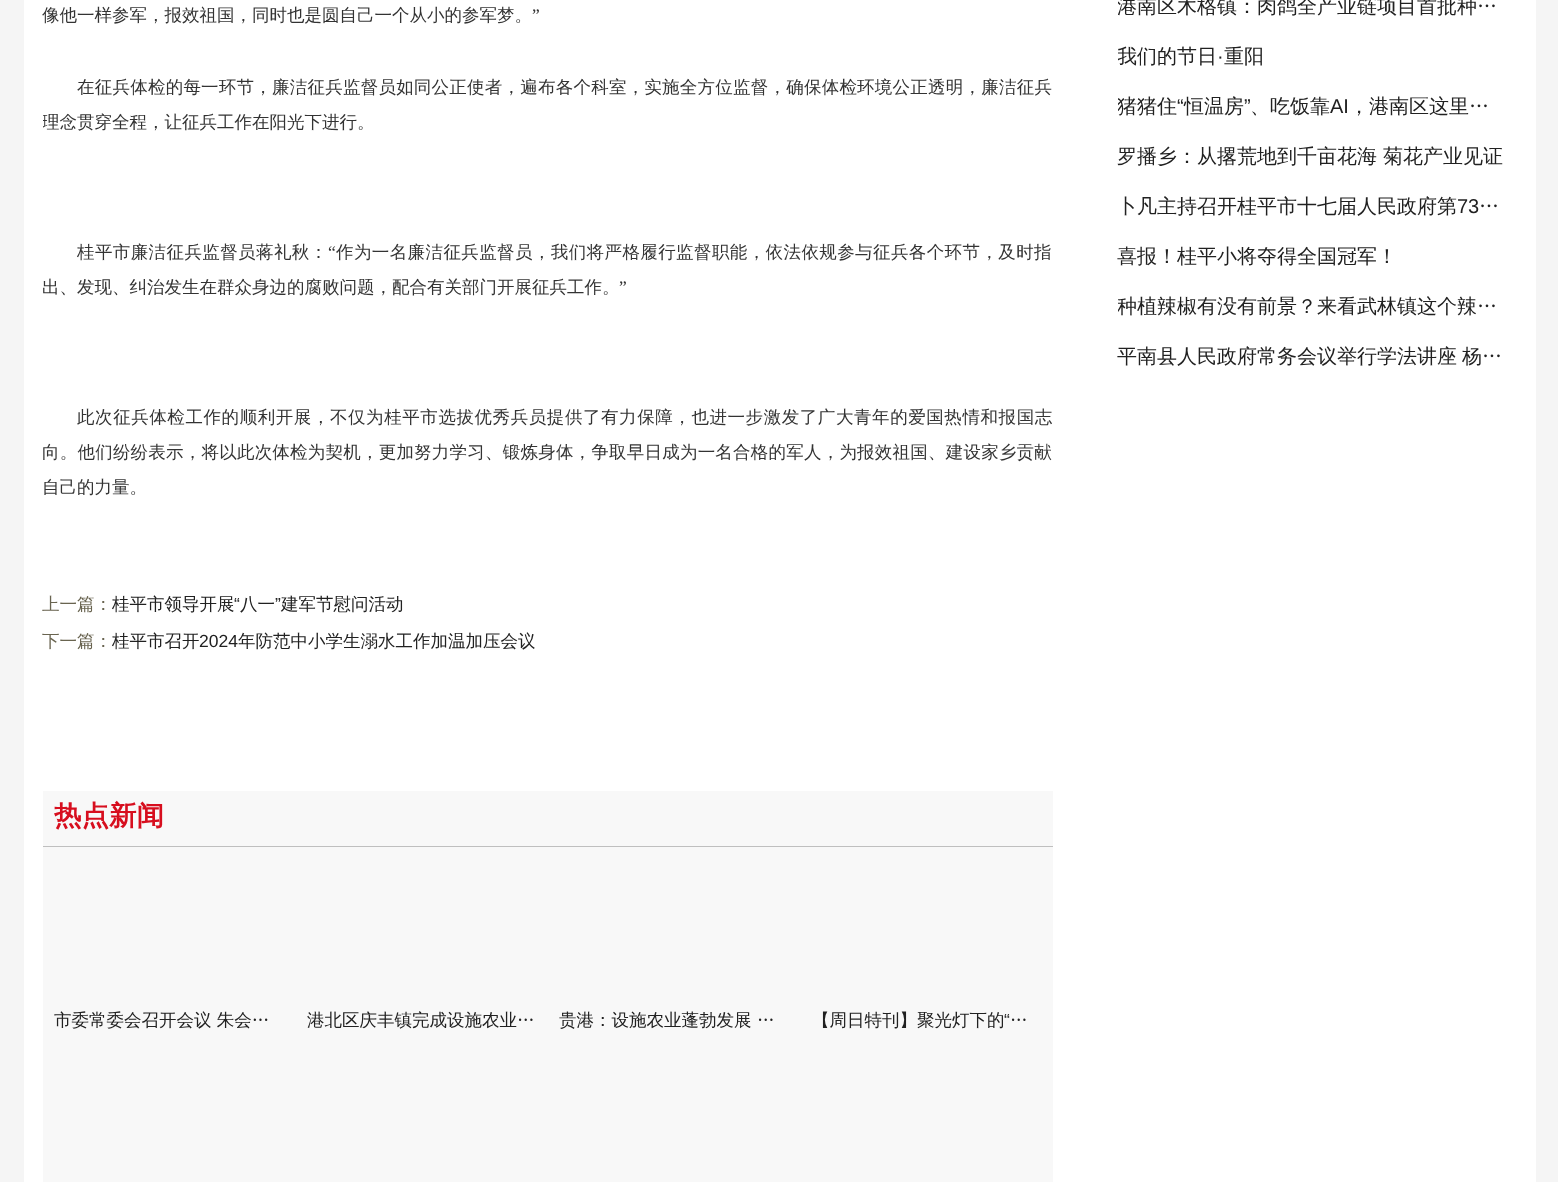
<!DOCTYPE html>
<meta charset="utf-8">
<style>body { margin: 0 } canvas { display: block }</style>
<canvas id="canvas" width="1558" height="1182"></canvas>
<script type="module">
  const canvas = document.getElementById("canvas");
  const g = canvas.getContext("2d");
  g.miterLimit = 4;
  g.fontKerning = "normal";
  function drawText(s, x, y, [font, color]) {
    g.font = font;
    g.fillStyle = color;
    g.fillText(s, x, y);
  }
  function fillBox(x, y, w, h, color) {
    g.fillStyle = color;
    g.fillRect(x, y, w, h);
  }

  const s1 = ["500 17.5px WenQuanYi Zen Hei", "#333333"];
  const s2 = ["17.5px Liberation Serif", "#333333"];
  const s3 = ["500 17.5px WenQuanYi Zen Hei", "#696450"];
  const s4 = ["500 17.5px WenQuanYi Zen Hei", "#212121"];
  const s5 = ["17.5px Liberation Sans", "#212121"];
  const s6 = ["bold 27.5px WenQuanYi Zen Hei", "#D70E1E"];
  const s7 = ["500 20px WenQuanYi Zen Hei", "#212121"];
  const s8 = ["20px Liberation Sans", "#212121"];

  fillBox(0, 0, 1558, 1182, "#F5F5F5");
  fillBox(24, 0, 1512, 1182, "#FFFFFF");
  drawText("像他一样参军，报效祖国，同时也是圆自己一个从小的参军梦。", 42, 21, s1);
  drawText("”", 532, 21, s2);
  g.letterSpacing = "0.23px";
  drawText("在征兵体检的每一环节，廉洁征兵监督员如同公正使者，遍布各个科室，实施全方位监督，确保体检环境公正透明，廉洁征兵", 77, 93, s1);
  g.save();
  g.beginPath();
  g.rect(43, 0, 1010, 593);
  g.clip();
  g.letterSpacing = "0px";
  drawText("理念贯穿全程，让征兵工作在阳光下进行。", 42, 128, s1);
  g.restore();
  g.letterSpacing = "0.4px";
  drawText("桂平市廉洁征兵监督员蒋礼秋：", 77, 258, s1);
  drawText("“", 328, 258, s2);
  drawText("作为一名廉洁征兵监督员，我们将严格履行监督职能，依法依规参与征兵各个环节，及时指", 336, 258, s1);
  g.letterSpacing = "0px";
  drawText("出、发现、纠治发生在群众身边的腐败问题，配合有关部门开展征兵工作。", 42, 293, s1);
  drawText("”", 619, 293, s2);
  g.letterSpacing = "0.57px";
  drawText("此次征兵体检工作的顺利开展，不仅为桂平市选拔优秀兵员提供了有力保障，也进一步激发了广大青年的爱国热情和报国志", 77, 423, s1);
  g.letterSpacing = "0.22px";
  drawText("向。他们纷纷表示，将以此次体检为契机，更加努力学习、锻炼身体，争取早日成为一名合格的军人，为报效祖国、建设家乡贡献", 42, 458, s1);
  g.letterSpacing = "0px";
  drawText("自己的力量。", 42, 493, s1);
  drawText("上一篇：", 42, 610, s3);
  drawText("桂平市领导开展", 112, 610, s4);
  drawText("“", 234, 610, s5);
  drawText("八一", 240, 610, s4);
  drawText("”", 275, 610, s5);
  drawText("建军节慰问活动", 281, 610, s4);
  drawText("下一篇：", 42, 647, s3);
  drawText("桂平市召开", 112, 647, s4);
  drawText("2024", 199, 647, s5);
  drawText("年防范中小学生溺水工作加温加压会议", 238, 647, s4);
  fillBox(43, 791, 1010, 391, "#F8F8F8");
  fillBox(43, 846, 1010, 1, "#BFBFBF");
  drawText("热点新闻", 54, 825, s6);
  drawText("市委常委会召开会议 朱会…", 54, 1026, s4);
  drawText("港北区庆丰镇完成设施农业…", 307, 1026, s4);
  drawText("贵港：设施农业蓬勃发展", 559, 1026, s4);
  drawText("…", 757, 1026, s4);
  drawText("【周日特刊】聚光灯下的", 812, 1026, s4);
  drawText("“", 1004, 1026, s5);
  drawText("…", 1010, 1026, s4);
  g.save();
  g.beginPath();
  g.rect(1118, 0, 387, 31);
  g.clip();
  drawText("港南区木格镇：肉鸽全产业链项目首批种…", 1117, 13, s7);
  g.restore();
  g.save();
  g.beginPath();
  g.rect(1118, 31, 387, 50);
  g.clip();
  drawText("我们的节日", 1117, 63, s7);
  g.restore();
  drawText("·", 1217, 63, s8);
  drawText("重阳", 1224, 63, s7);
  g.save();
  g.beginPath();
  g.rect(1118, 81, 387, 50);
  g.clip();
  drawText("猪猪住", 1117, 113, s7);
  g.restore();
  drawText("“", 1177, 113, s8);
  drawText("恒温房", 1184, 113, s7);
  drawText("”", 1244, 113, s8);
  drawText("、吃饭靠", 1250, 113, s7);
  drawText("AI", 1330, 113, s8);
  drawText("，港南区这里…", 1349, 113, s7);
  drawText("罗播乡：从撂荒地到千亩花海 菊花产业见证", 1117, 163, s7);
  drawText("卜凡主持召开桂平市十七届人民政府第", 1117, 213, s7);
  drawText("73", 1457, 213, s8);
  drawText("…", 1479, 213, s7);
  drawText("喜报！桂平小将夺得全国冠军！", 1117, 263, s7);
  g.save();
  g.beginPath();
  g.rect(1118, 281, 387, 50);
  g.clip();
  drawText("种植辣椒有没有前景？来看武林镇这个辣…", 1117, 313, s7);
  g.restore();
  drawText("平南县人民政府常务会议举行学法讲座", 1117, 363, s7);
  drawText("杨…", 1462, 363, s7);
</script>
